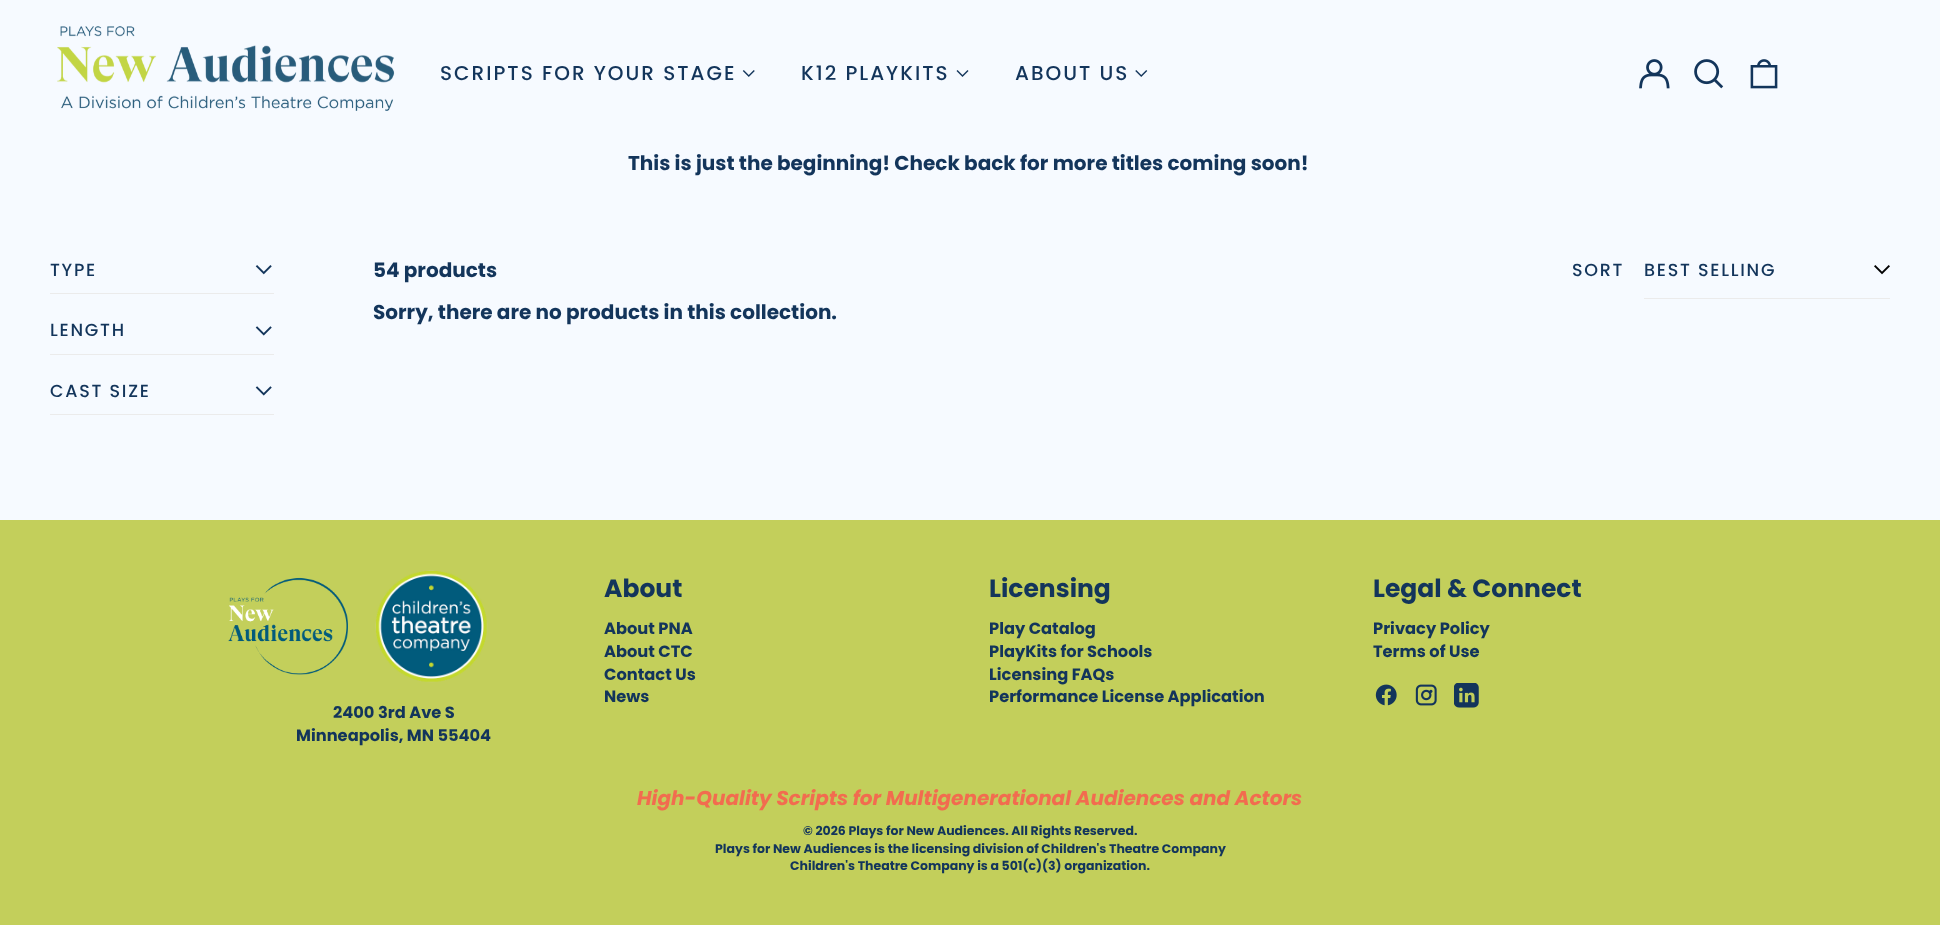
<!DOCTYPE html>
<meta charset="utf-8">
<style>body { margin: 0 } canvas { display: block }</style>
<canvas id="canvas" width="1940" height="925"></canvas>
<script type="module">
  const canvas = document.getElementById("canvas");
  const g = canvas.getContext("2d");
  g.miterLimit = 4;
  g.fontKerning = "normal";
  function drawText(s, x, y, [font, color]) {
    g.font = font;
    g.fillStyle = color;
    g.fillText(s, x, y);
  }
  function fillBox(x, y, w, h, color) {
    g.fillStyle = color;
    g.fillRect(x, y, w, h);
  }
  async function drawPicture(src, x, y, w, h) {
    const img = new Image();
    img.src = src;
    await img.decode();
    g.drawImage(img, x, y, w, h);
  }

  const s1 = ["500 20px Poppins", "#13355B"];
  const s2 = ["bold 20px Poppins", "#13355B"];
  const s3 = ["500 17.5px Poppins", "#13355B"];
  const s4 = ["bold 25px Poppins", "#13355B"];
  const s5 = ["bold 16.25px Poppins", "#13355B"];
  const s6 = ["italic bold 20px Poppins", "#F26C4F"];
  const s7 = ["bold 12.5px Poppins", "#13355B"];

  fillBox(0, 0, 1940, 925, "#F6FAFF");
  await drawPicture("pic1.png", 57, 26, 338, 85);
  g.letterSpacing = "2px";
  drawText("SCRIPTS FOR YOUR STAGE", 440, 80, s1);
  await drawPicture("pic2.png", 742, 70, 13, 7);
  drawText("K12 PLAYKITS", 801, 80, s1);
  await drawPicture("pic3.png", 956, 70, 13, 7);
  drawText("ABOUT US", 1015, 80, s1);
  await drawPicture("pic4.png", 1135, 70, 13, 7);
  await drawPicture("pic5.png", 1639, 59, 31, 30);
  await drawPicture("pic6.png", 1694, 59, 30, 30);
  await drawPicture("pic7.png", 1750, 59, 28, 30);
  g.letterSpacing = "0px";
  drawText("This is just the beginning! Check back for more titles coming soon!", 628, 170, s2);
  fillBox(50, 293, 224, 1, "#EBEBEB");
  g.letterSpacing = "1.75px";
  drawText("TYPE", 50, 276, s3);
  await drawPicture("pic8.png", 255, 265, 17, 10);
  fillBox(50, 354, 224, 1, "#EBEBEB");
  drawText("LENGTH", 50, 336, s3);
  await drawPicture("pic9.png", 255, 326, 17, 10);
  fillBox(50, 414, 224, 1, "#EBEBEB");
  drawText("CAST SIZE", 50, 397, s3);
  await drawPicture("pic9.png", 255, 386, 17, 10);
  g.letterSpacing = "0px";
  drawText("54 products", 373, 277, s2);
  g.letterSpacing = "1.75px";
  drawText("SORT", 1572, 276, s3);
  await drawPicture("pic10.png", 1874, 265, 16, 10);
  fillBox(1644, 298, 246, 1, "#EBEBEB");
  drawText("BEST SELLING", 1644, 276, s3);
  g.letterSpacing = "0px";
  drawText("Sorry, there are no products in this collection.", 373, 319, s2);
  fillBox(0, 520, 1940, 405, "#C3CF5B");
  drawText("About", 604, 597, s4);
  drawText("About PNA", 604, 634, s5);
  drawText("About CTC", 604, 657, s5);
  drawText("Contact Us", 604, 680, s5);
  drawText("News", 604, 702, s5);
  drawText("Licensing", 989, 597, s4);
  drawText("Play Catalog", 989, 634, s5);
  drawText("PlayKits for Schools", 989, 657, s5);
  drawText("Licensing FAQs", 989, 680, s5);
  drawText("Performance License Application", 989, 702, s5);
  drawText("Legal & Connect", 1373, 597, s4);
  drawText("Privacy Policy", 1373, 634, s5);
  drawText("Terms of Use", 1373, 657, s5);
  await drawPicture("pic11.png", 1375, 684, 22, 22);
  await drawPicture("pic12.png", 1415, 684, 22, 22);
  await drawPicture("pic13.png", 1454, 683, 25, 25);
  await drawPicture("pic14.png", 228, 577, 120, 98);
  await drawPicture("pic15.png", 375, 570, 113, 113);
  drawText("2400 3rd Ave S", 333, 718, s5);
  drawText("Minneapolis, MN 55404", 296, 741, s5);
  drawText("High-Quality Scripts for Multigenerational Audiences and Actors", 637, 805, s6);
  drawText("© 2026 Plays for New Audiences. All Rights Reserved.", 803, 835, s7);
  drawText("Plays for New Audiences is the licensing division of Children's Theatre Company", 715, 853, s7);
  drawText("Children's Theatre Company is a 501(c)(3) organization.", 790, 870, s7);
</script>
